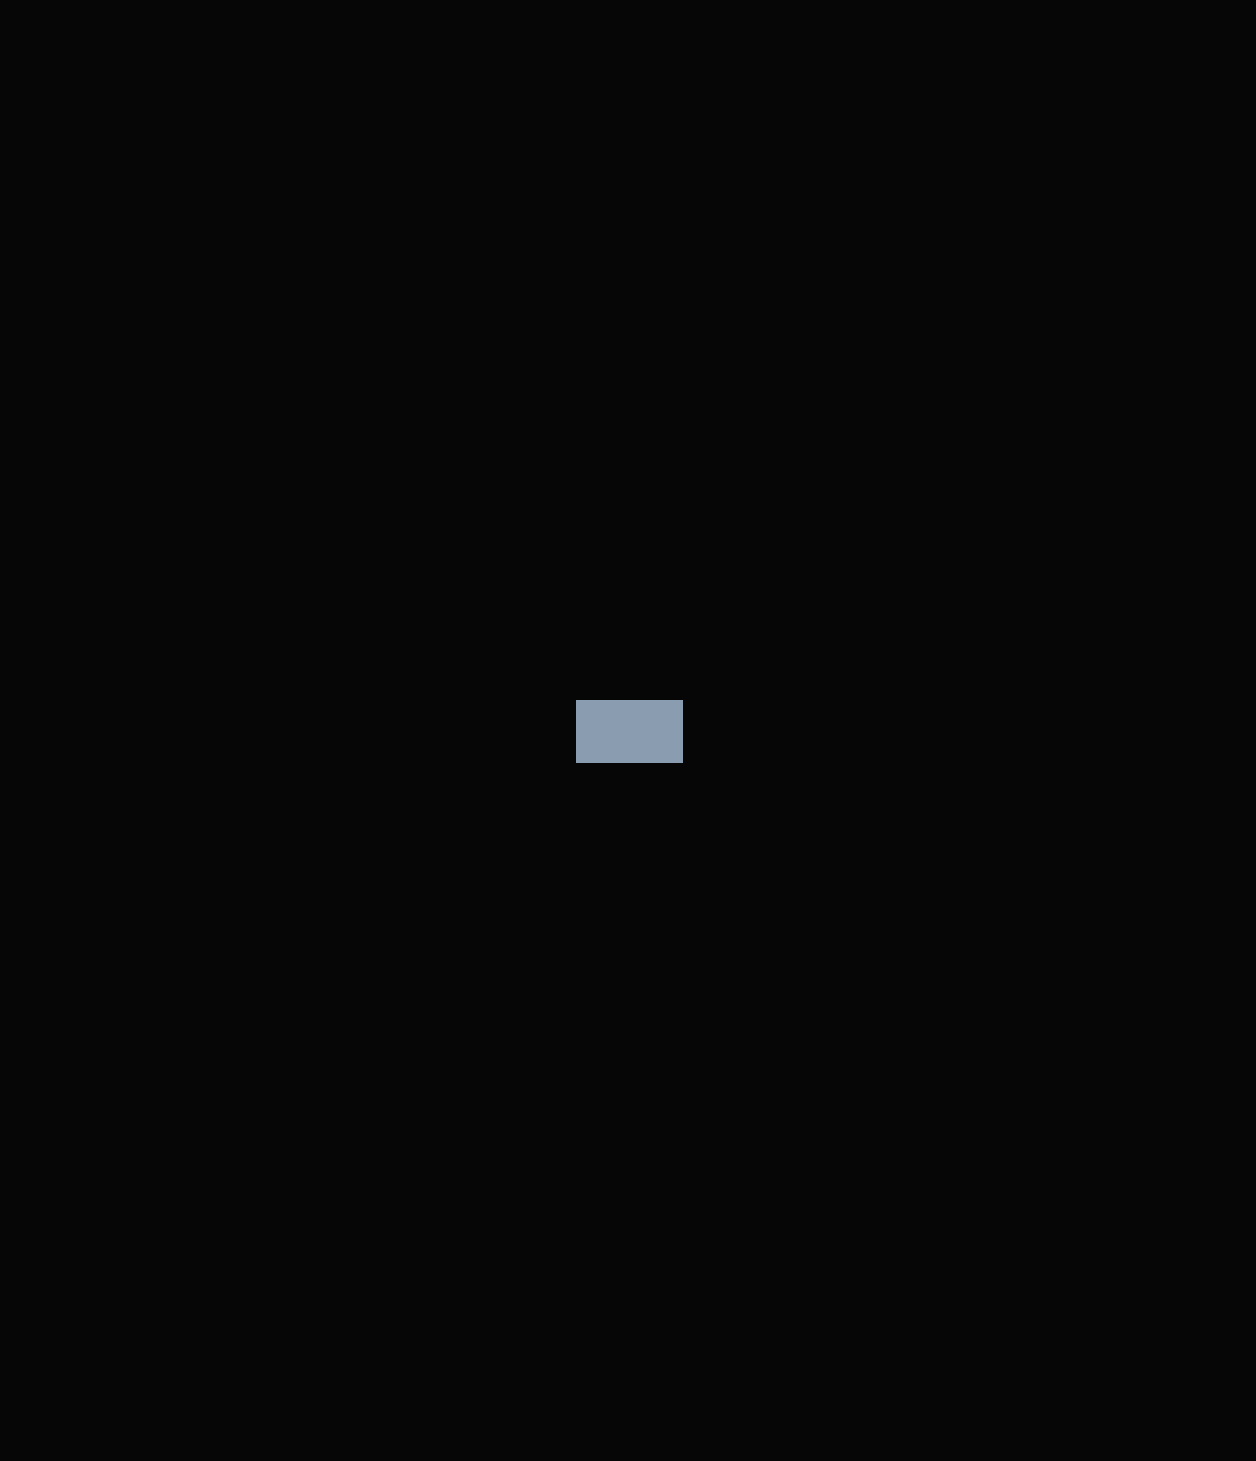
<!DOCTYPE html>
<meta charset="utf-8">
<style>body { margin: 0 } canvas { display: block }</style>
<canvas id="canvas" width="1256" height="1461"></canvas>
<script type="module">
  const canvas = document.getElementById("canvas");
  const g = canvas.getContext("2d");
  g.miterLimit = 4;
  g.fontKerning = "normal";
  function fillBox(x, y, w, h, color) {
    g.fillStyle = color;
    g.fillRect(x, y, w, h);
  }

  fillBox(0, 0, 1256, 1461, "#060606");
  fillBox(576, 700, 107, 63, "#8A9CB0");
</script>
